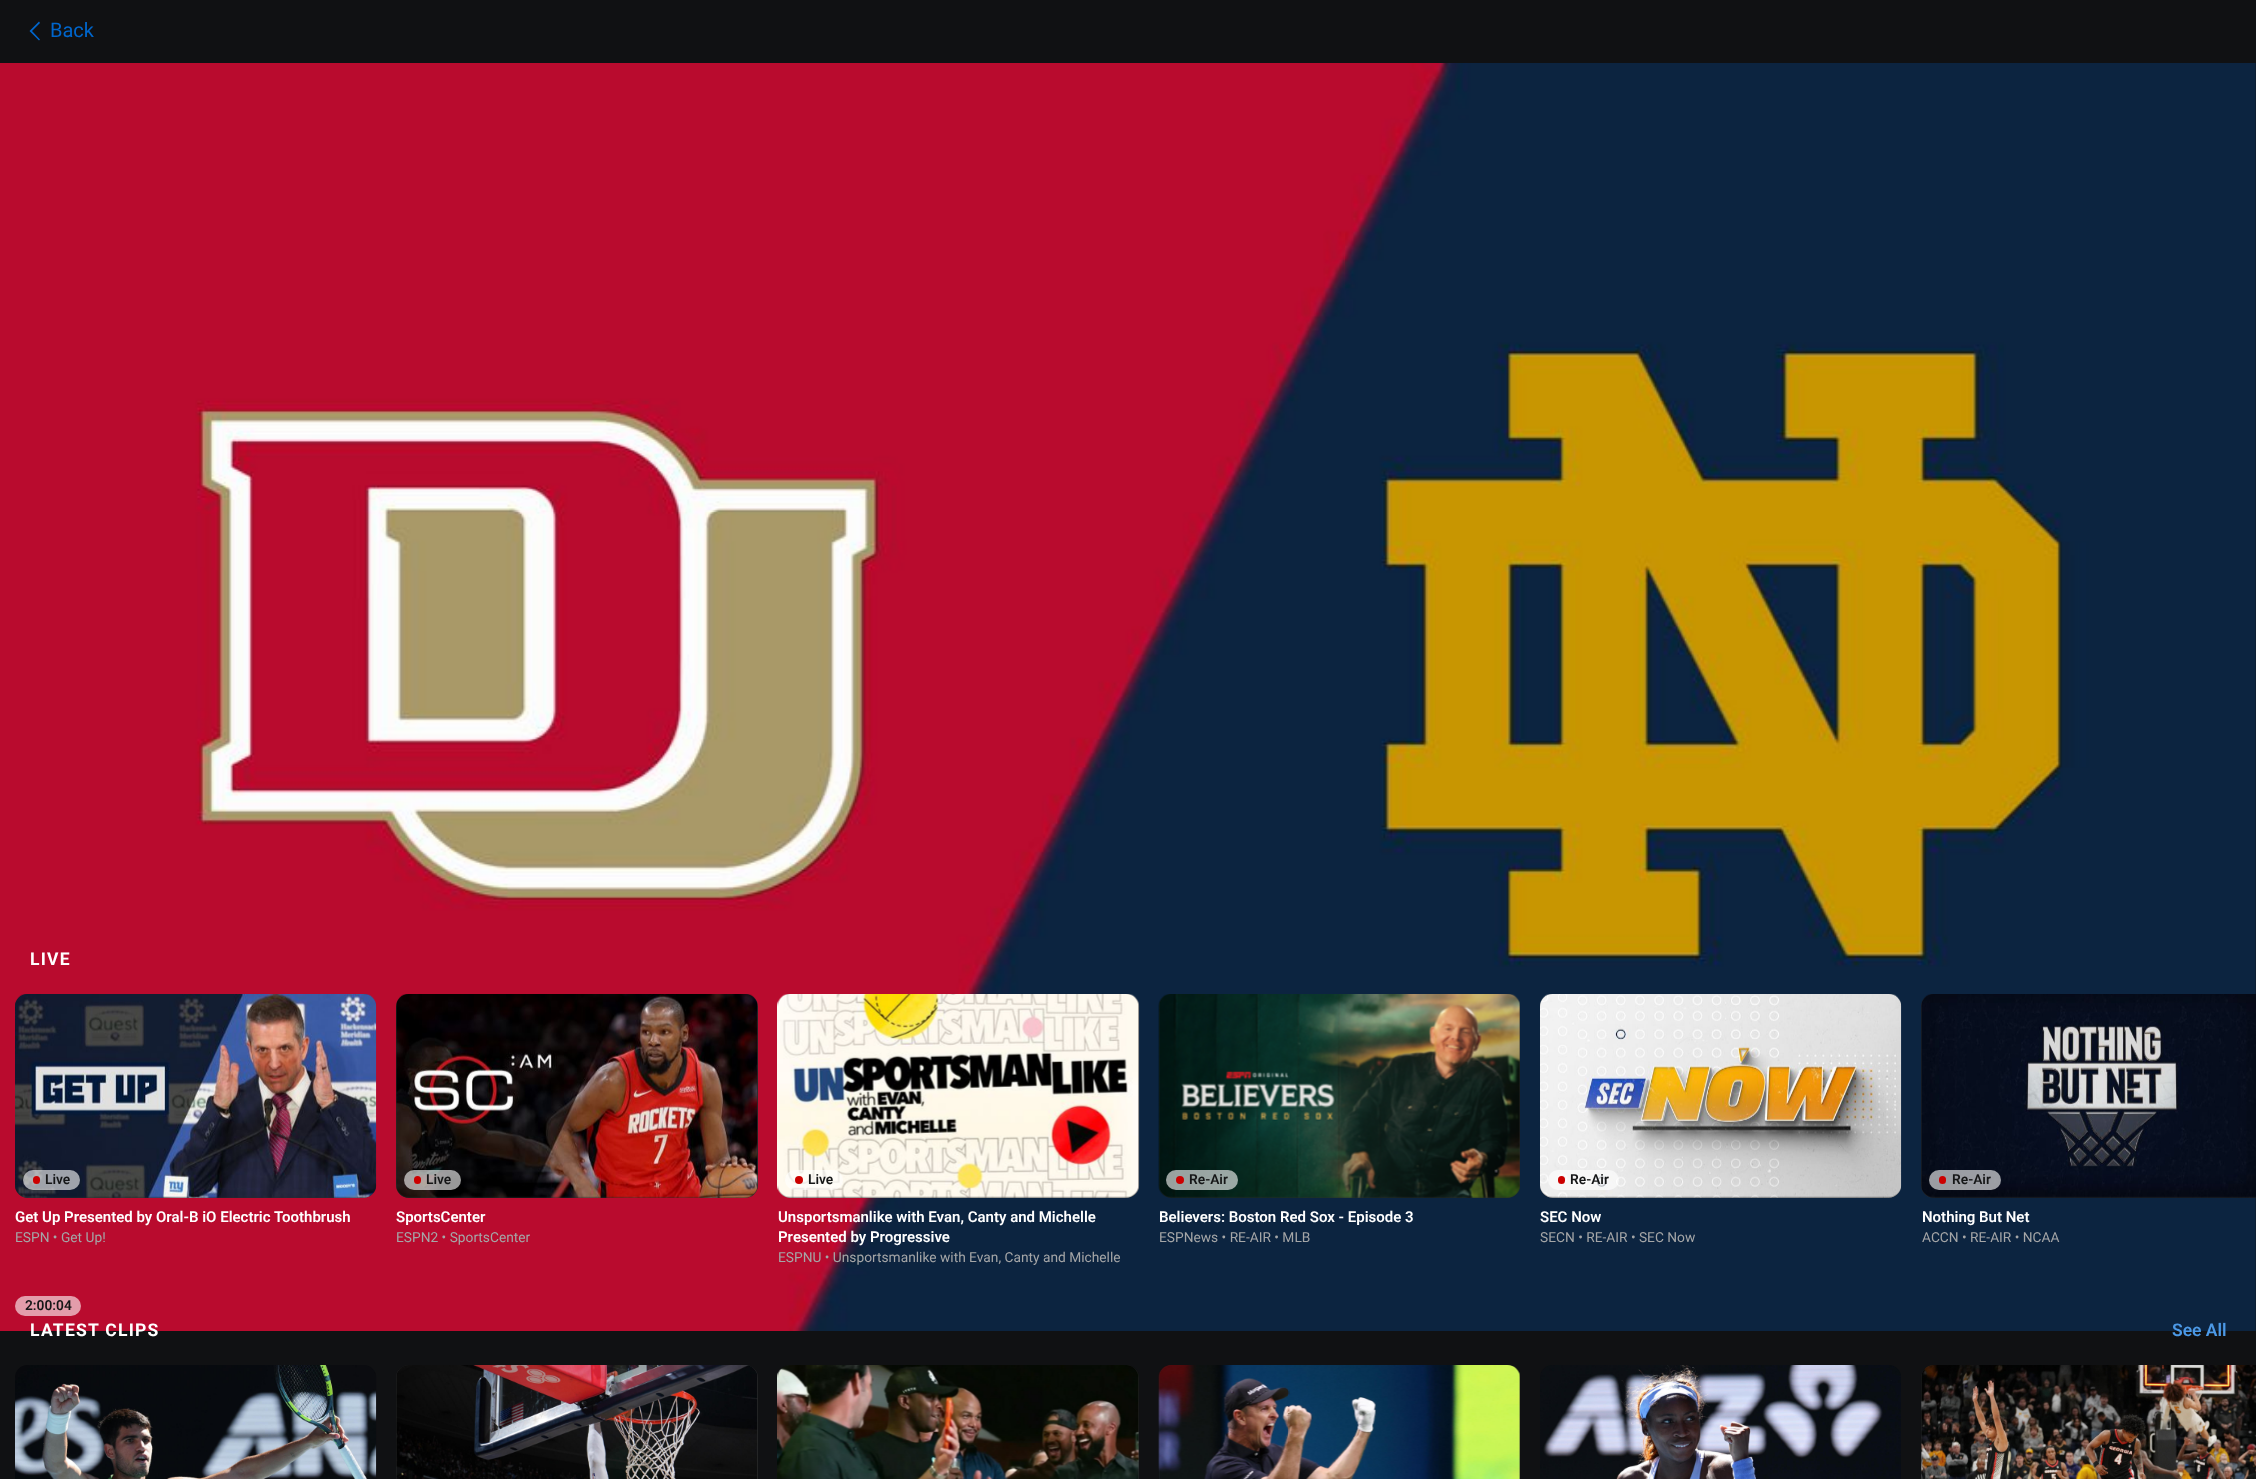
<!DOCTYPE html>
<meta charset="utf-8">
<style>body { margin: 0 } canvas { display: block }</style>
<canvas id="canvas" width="2256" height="1479"></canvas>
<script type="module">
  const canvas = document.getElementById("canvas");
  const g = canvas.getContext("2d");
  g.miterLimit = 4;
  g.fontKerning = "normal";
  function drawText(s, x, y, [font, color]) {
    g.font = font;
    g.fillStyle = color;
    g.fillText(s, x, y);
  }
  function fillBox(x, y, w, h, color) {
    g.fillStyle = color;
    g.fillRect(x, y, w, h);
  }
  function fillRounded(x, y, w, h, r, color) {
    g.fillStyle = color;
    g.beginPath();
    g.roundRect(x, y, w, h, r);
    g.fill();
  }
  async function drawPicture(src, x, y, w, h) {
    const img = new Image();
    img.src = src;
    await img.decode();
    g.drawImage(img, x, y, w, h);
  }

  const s1 = ["20px Roboto", "#0066CC"];
  const s2 = ["600 13.75px Roboto", "#151617"];
  const s3 = ["bold 17.5px Roboto", "#FFFFFF"];
  const s4 = ["600 15px Roboto", "#FFFFFF"];
  const s5 = ["13.75px Roboto", "#A5A6A7"];
  const s6 = ["600 17.5px Roboto", "#4C99E6"];

  fillBox(0, 0, 2256, 1479, "#101113");
  g.fillStyle = "#0066CC";
  g.beginPath();
  g.moveTo(39, 40.5);
  g.lineTo(40, 39.5);
  g.lineTo(32, 31);
  g.lineTo(40, 23);
  g.lineTo(39, 21.5);
  g.lineTo(29.5, 31);
  g.closePath();
  g.fill();
  drawText("Back", 50, 37, s1);
  await drawPicture("pic1.png", 0, 63, 2256, 1268);
  fillRounded(15, 1296, 66, 20, 10, "#E39DAB");
  drawText("2:00:04", 25, 1310, s2);
  g.letterSpacing = "1.25px";
  drawText("LIVE", 30, 965, s3);
  fillRounded(15, 994, 361, 204, 13, "#2B2C2D");
  await drawPicture("pic2.png", 15, 994, 362, 204);
  fillRounded(23, 1170, 57, 20, 10, "rgba(255, 255, 255, 0.6)");
  fillRounded(33, 1176, 7, 8, 3.5, "#CC0000");
  g.letterSpacing = "0px";
  drawText("Live", 45, 1184, s2);
  drawText("Get Up Presented by Oral-B iO Electric Toothbrush", 15, 1222, s4);
  drawText("ESPN • Get Up!", 15, 1242, s5);
  fillRounded(396, 994, 362, 204, 13, "#2B2C2D");
  await drawPicture("pic3.png", 396, 994, 362, 204);
  fillRounded(404, 1170, 57, 20, 10, "rgba(255, 255, 255, 0.6)");
  fillRounded(414, 1176, 7, 8, 3.5, "#CC0000");
  drawText("Live", 426, 1184, s2);
  drawText("SportsCenter", 396, 1222, s4);
  drawText("ESPN2 • SportsCenter", 396, 1242, s5);
  fillRounded(778, 994, 361, 204, 13, "#2B2C2D");
  await drawPicture("pic4.png", 777, 994, 363, 204);
  fillRounded(785, 1170, 58, 20, 10, "rgba(255, 255, 255, 0.6)");
  g.fillStyle = "#CC0000";
  g.beginPath();
  g.arc(799, 1180, 4, 0, Math.PI * 2);
  g.fill();
  drawText("Live", 808, 1184, s2);
  drawText("Unsportsmanlike with Evan, Canty and Michelle", 778, 1222, s4);
  drawText("Presented by Progressive", 778, 1242, s4);
  drawText("ESPNU • Unsportsmanlike with Evan, Canty and Michelle", 778, 1262, s5);
  fillRounded(1159, 994, 361, 204, 13, "#2B2C2D");
  await drawPicture("pic5.png", 1158, 994, 362, 204);
  fillRounded(1166, 1170, 72, 20, 10, "rgba(255, 255, 255, 0.6)");
  g.fillStyle = "#CC0000";
  g.beginPath();
  g.arc(1180, 1180, 4, 0, Math.PI * 2);
  g.fill();
  drawText("Re-Air", 1189, 1184, s2);
  drawText("Believers: Boston Red Sox - Episode 3", 1159, 1222, s4);
  drawText("ESPNews • RE-AIR • MLB", 1159, 1242, s5);
  fillRounded(1540, 994, 361, 204, 13, "#2B2C2D");
  await drawPicture("pic6.png", 1540, 994, 362, 204);
  fillRounded(1548, 1170, 71, 20, 10, "rgba(255, 255, 255, 0.6)");
  fillRounded(1558, 1176, 7, 8, 3.5, "#CC0000");
  drawText("Re-Air", 1570, 1184, s2);
  drawText("SEC Now", 1540, 1222, s4);
  drawText("SECN • RE-AIR • SEC Now", 1540, 1242, s5);
  g.fillStyle = "#2B2C2D";
  g.beginPath();
  g.roundRect(1921, 994, 335, 204, [13, 0, 0, 13]);
  g.fill();
  await drawPicture("pic7.png", 1921, 994, 335, 204);
  fillRounded(1929, 1170, 72, 20, 10, "rgba(255, 255, 255, 0.6)");
  fillRounded(1939, 1176, 7, 8, 3.5, "#CC0000");
  drawText("Re-Air", 1952, 1184, s2);
  drawText("Nothing But Net", 1922, 1222, s4);
  drawText("ACCN • RE-AIR • NCAA", 1922, 1242, s5);
  g.letterSpacing = "1.25px";
  drawText("LATEST CLIPS", 30, 1336, s3);
  g.letterSpacing = "0px";
  drawText("See All", 2172, 1336, s6);
  await drawPicture("pic8.png", 15, 1365, 362, 114);
  fillRounded(396, 1365, 362, 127, 13, "#2B2C2D");
  await drawPicture("pic9.png", 396, 1365, 362, 114);
  fillRounded(778, 1365, 361, 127, 13, "#2B2C2D");
  await drawPicture("pic10.png", 777, 1365, 362, 114);
  fillRounded(1159, 1365, 361, 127, 13, "#2B2C2D");
  await drawPicture("pic11.png", 1158, 1365, 362, 114);
  await drawPicture("pic12.png", 1540, 1365, 361, 114);
  g.beginPath();
  g.moveTo(1934, 1365);
  g.lineTo(2256, 1365);
  g.lineTo(2256, 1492);
  g.lineTo(1934, 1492);
  g.bezierCurveTo(1927, 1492, 1921, 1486, 1921, 1479);
  g.lineTo(1921, 1378);
  g.bezierCurveTo(1921, 1371, 1927, 1365, 1934, 1365);
  g.closePath();
  g.fill();
  await drawPicture("pic13.png", 1921, 1365, 335, 114);
</script>
